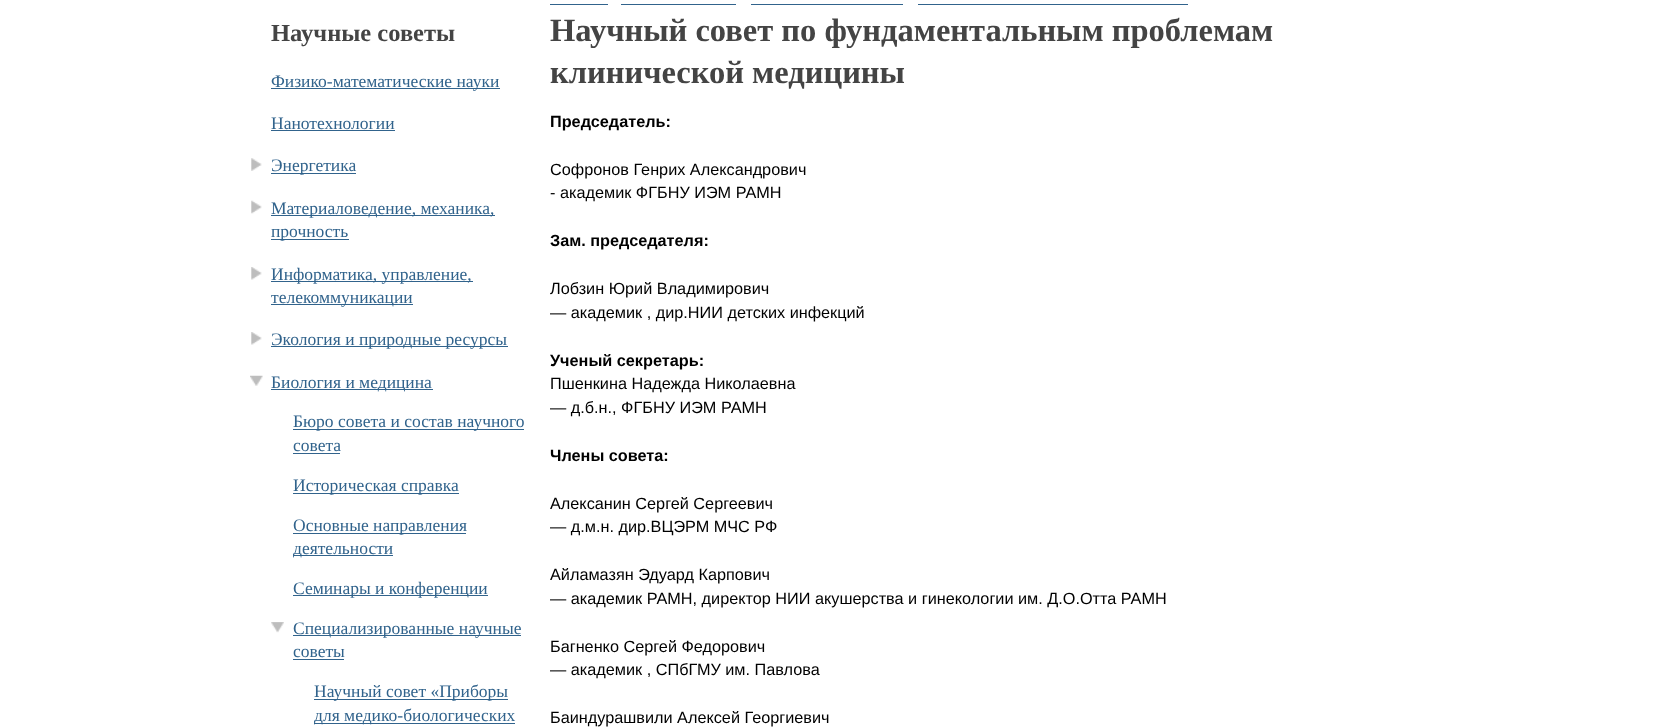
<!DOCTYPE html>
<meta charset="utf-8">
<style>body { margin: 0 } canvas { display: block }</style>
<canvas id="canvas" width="1675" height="728"></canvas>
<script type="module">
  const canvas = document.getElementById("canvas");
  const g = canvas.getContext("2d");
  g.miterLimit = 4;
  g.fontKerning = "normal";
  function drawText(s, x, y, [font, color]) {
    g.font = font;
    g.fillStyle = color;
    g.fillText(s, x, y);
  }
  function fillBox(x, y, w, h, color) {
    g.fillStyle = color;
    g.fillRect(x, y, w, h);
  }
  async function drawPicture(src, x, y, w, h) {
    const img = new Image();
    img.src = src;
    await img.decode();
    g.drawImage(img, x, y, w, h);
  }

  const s1 = ["bold 24.5px Liberation Serif", "#444444"];
  const s2 = ["17.5px Liberation Serif", "#31638C"];
  const s3 = ["bold 32.5px Liberation Serif", "#444444"];
  const s4 = ["bold 16.25px Liberation Sans", "#000000"];
  const s5 = ["16.25px Liberation Sans", "#000000"];

  fillBox(0, 0, 1675, 728, "#FFFFFF");
  drawText("Научные советы", 271, 41, s1);
  fillBox(271, 88, 229, 1, "#31638C");
  drawText("Физико-математические науки", 271, 87, s2);
  drawText("Нанотехнологии", 271, 129, s2);
  fillBox(271, 130, 124, 1, "#31638C");
  await drawPicture("pic1.png", 251, 158, 11, 13);
  fillBox(271, 173, 85, 1, "#31638C");
  drawText("Энергетика", 271, 171, s2);
  await drawPicture("pic2.png", 251, 200, 11, 14);
  fillBox(271, 215, 224, 1, "#31638C");
  drawText("Материаловедение, механика,", 271, 214, s2);
  fillBox(271, 239, 78, 1, "#31638C");
  drawText("прочность", 271, 237, s2);
  await drawPicture("pic3.png", 251, 267, 11, 13);
  fillBox(271, 281, 202, 1, "#31638C");
  drawText("Информатика, управление,", 271, 280, s2);
  fillBox(271, 304, 142, 1, "#31638C");
  drawText("телекоммуникации", 271, 303, s2);
  await drawPicture("pic3.png", 251, 332, 11, 13);
  fillBox(271, 346, 237, 1, "#31638C");
  drawText("Экология и природные ресурсы", 271, 345, s2);
  await drawPicture("pic4.png", 250, 375, 13, 11);
  fillBox(271, 389, 162, 1, "#31638C");
  drawText("Биология и медицина", 271, 388, s2);
  fillBox(293, 429, 231, 1, "#31638C");
  drawText("Бюро совета и состав научного", 293, 427, s2);
  drawText("совета", 293, 451, s2);
  fillBox(293, 453, 47, 1, "#31638C");
  fillBox(293, 493, 166, 1, "#31638C");
  drawText("Историческая справка", 293, 491, s2);
  fillBox(293, 533, 173, 1, "#31638C");
  drawText("Основные направления", 293, 531, s2);
  fillBox(293, 555, 100, 1, "#31638C");
  drawText("деятельности", 293, 554, s2);
  fillBox(293, 595, 195, 1, "#31638C");
  drawText("Семинары и конференции", 293, 594, s2);
  await drawPicture("pic5.png", 271, 622, 13, 11);
  fillBox(293, 635, 228, 1, "#31638C");
  drawText("Специализированные научные", 293, 634, s2);
  drawText("советы", 293, 657, s2);
  fillBox(293, 659, 51, 1, "#31638C");
  fillBox(314, 699, 194, 1, "#31638C");
  drawText("Научный совет «Приборы", 314, 697, s2);
  fillBox(314, 723, 201, 1, "#31638C");
  drawText("для медико-биологических", 314, 721, s2);
  fillBox(550, 4, 58, 1, "#31638C");
  fillBox(621, 4, 115, 1, "#31638C");
  fillBox(751, 4, 152, 1, "#31638C");
  fillBox(918, 4, 270, 1, "#31638C");
  drawText("Научный совет по фундаментальным проблемам", 550, 41, s3);
  drawText("клинической медицины", 550, 83, s3);
  drawText("Председатель:", 550, 127, s4);
  drawText("Софронов Генрих Александрович", 550, 175, s5);
  drawText("- академик ФГБНУ ИЭМ РАМН", 550, 198, s5);
  drawText("Зам. председателя:", 550, 246, s4);
  drawText("Лобзин Юрий Владимирович", 550, 294, s5);
  drawText("— академик , дир.НИИ детских инфекций", 550, 318, s5);
  drawText("Ученый секретарь:", 550, 366, s4);
  drawText("Пшенкина Надежда Николаевна", 550, 389, s5);
  drawText("— д.б.н., ФГБНУ ИЭМ РАМН", 550, 413, s5);
  drawText("Члены совета:", 550, 461, s4);
  drawText("Алексанин Сергей Сергеевич", 550, 509, s5);
  drawText("— д.м.н. дир.ВЦЭРМ МЧС РФ", 550, 532, s5);
  drawText("Айламазян Эдуард Карпович", 550, 580, s5);
  drawText("— академик РАМН, директор НИИ акушерства и гинекологии им. Д.О.Отта РАМН", 550, 604, s5);
  drawText("Багненко Сергей Федорович", 550, 652, s5);
  drawText("— академик , СПбГМУ им. Павлова", 550, 675, s5);
  drawText("Баиндурашвили Алексей Георгиевич", 550, 723, s5);
</script>
